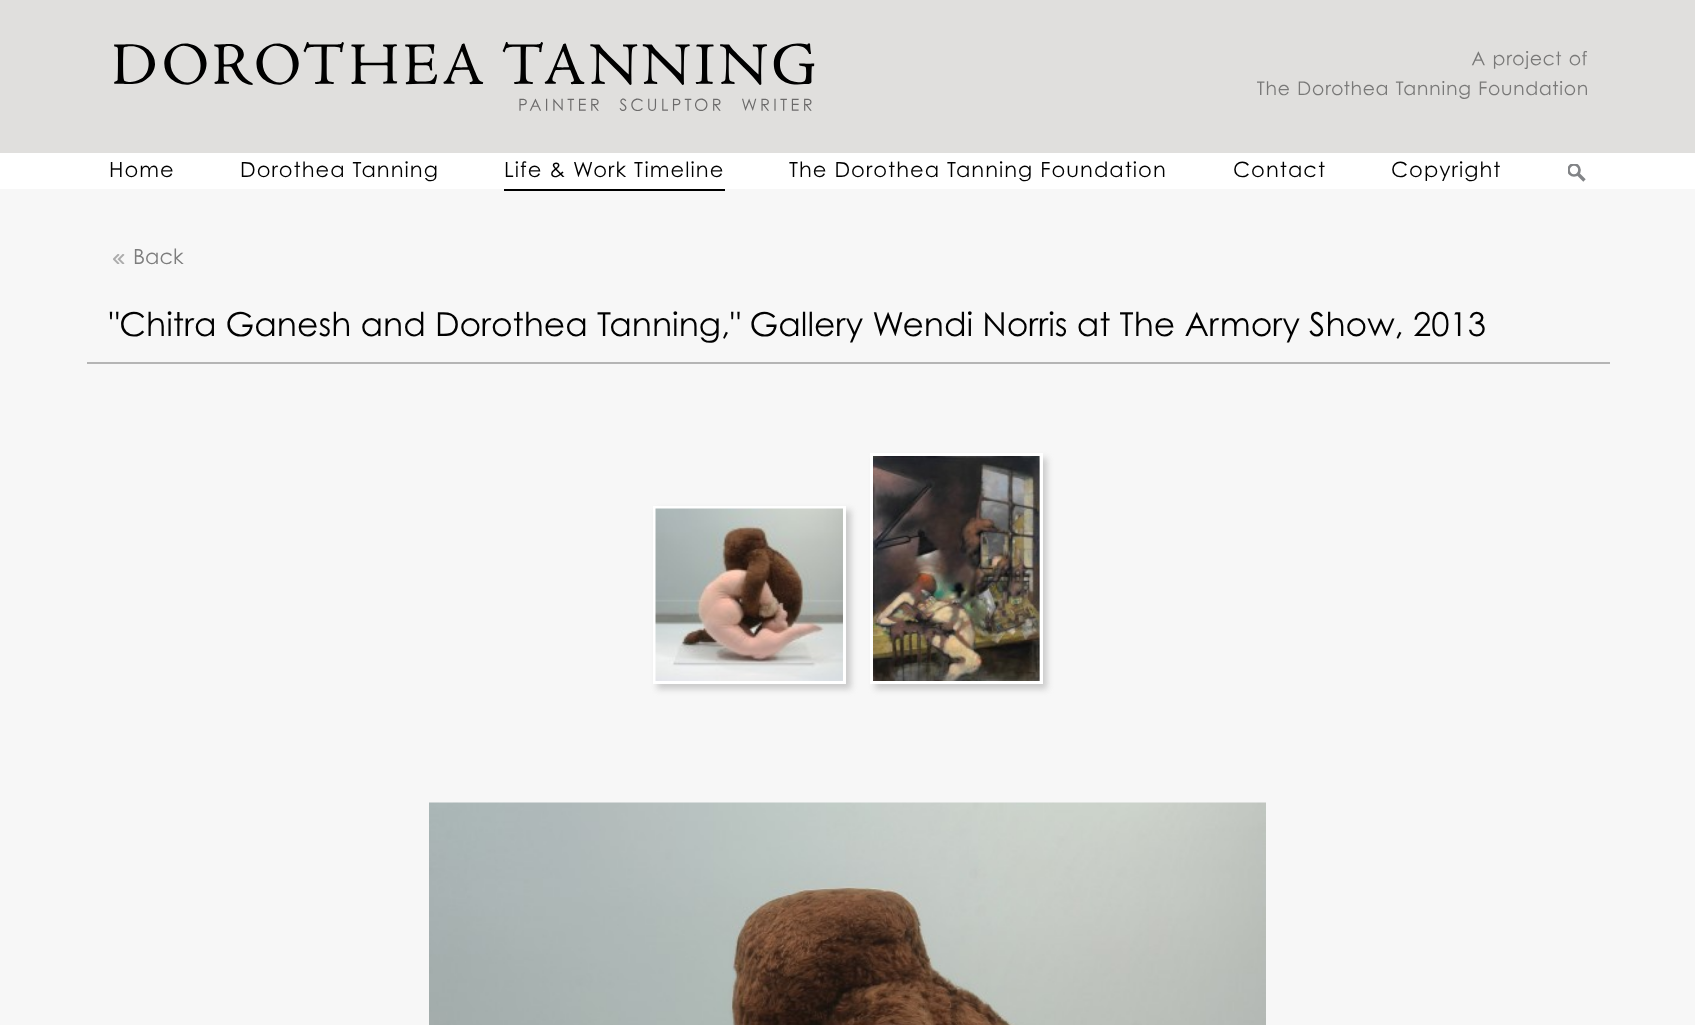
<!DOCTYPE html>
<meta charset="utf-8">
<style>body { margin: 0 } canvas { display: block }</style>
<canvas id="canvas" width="1695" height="1025"></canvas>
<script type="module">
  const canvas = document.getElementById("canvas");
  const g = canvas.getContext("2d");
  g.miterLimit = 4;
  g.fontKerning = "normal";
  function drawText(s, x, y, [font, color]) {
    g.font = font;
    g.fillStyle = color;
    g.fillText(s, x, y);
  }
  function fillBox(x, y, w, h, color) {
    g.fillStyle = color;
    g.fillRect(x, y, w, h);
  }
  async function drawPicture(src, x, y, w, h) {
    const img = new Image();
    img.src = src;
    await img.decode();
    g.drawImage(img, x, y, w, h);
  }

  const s1 = ["21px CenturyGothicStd", "#000000"];
  const s2 = ["21px CenturyGothicStd", "#7D7D7D"];
  const s3 = ["33px CenturyGothicStd", "#000000"];

  fillBox(0, 0, 1695, 1025, "#F7F7F7");
  fillBox(0, 0, 1695, 153, "#E0DFDD");
  await drawPicture("pic1.png", 114, 42, 701, 69);
  await drawPicture("pic2.png", 1257, 51, 330, 48);
  fillBox(0, 153, 1695, 36, "#FFFFFF");
  g.letterSpacing = "1.05px";
  drawText("Home", 109, 177, s1);
  drawText("Dorothea Tanning", 240, 177, s1);
  fillBox(504, 189, 221, 2, "#000000");
  drawText("Life & Work Timeline", 504, 177, s1);
  drawText("The Dorothea Tanning Foundation", 789, 177, s1);
  drawText("Contact", 1233, 177, s1);
  drawText("Copyright", 1391, 177, s1);
  g.beginPath();
  g.moveTo(1584.5, 180.5);
  g.lineTo(1578, 174);
  g.strokeStyle = "#828487";
  g.lineWidth = 3.3;
  g.stroke();
  g.save();
  g.beginPath();
  g.rect(1568, 164, 18, 18);
  g.clip();
  g.beginPath();
  g.arc(1574, 170, 5.5, 0, Math.PI * 2);
  g.lineWidth = 2.7;
  g.stroke();
  g.restore();
  await drawPicture("pic3.png", 113, 254, 12, 10);
  g.letterSpacing = "0px";
  drawText("Back", 133, 264, s2);
  drawText("\"Chitra Ganesh and Dorothea Tanning,\" Gallery Wendi Norris at The Armory Show, 2013", 109, 336, s3);
  fillBox(87, 362, 1523, 2, "#B5B5B5");
  g.fillStyle = "#CACACA";
  g.filter = "blur(3px)";
  g.beginPath();
  g.rect(657, 510, 194, 179);
  g.fill();
  g.filter = "none";
  g.strokeStyle = "#FFFFFF";
  g.lineWidth = 3;
  g.strokeRect(654.5, 507.5, 190, 175);
  await drawPicture("pic4.png", 655, 508, 188, 173);
  g.filter = "blur(3px)";
  g.beginPath();
  g.rect(875, 458, 172, 231);
  g.fill();
  g.filter = "none";
  g.strokeRect(871.5, 454.5, 170, 228);
  await drawPicture("pic5.png", 873, 456, 167, 225);
  await drawPicture("pic6.png", 429, 802, 837, 223);
</script>
